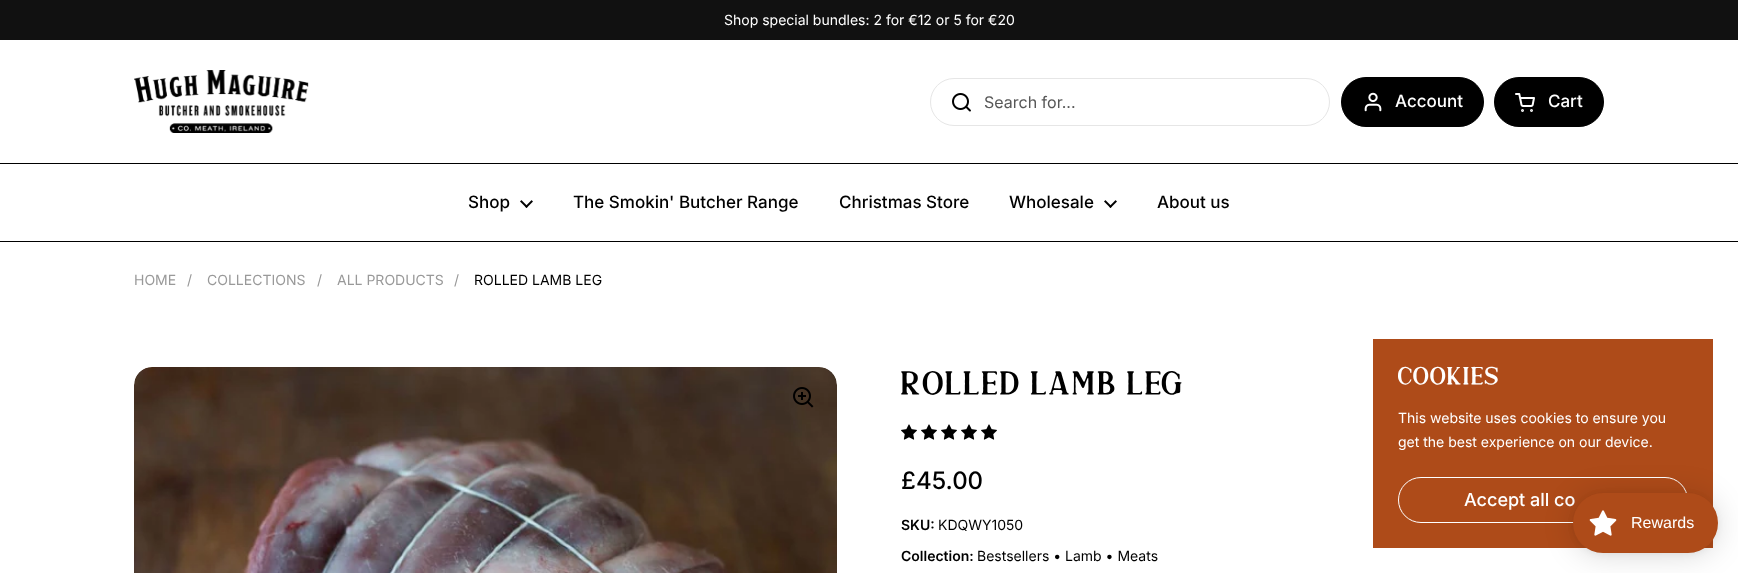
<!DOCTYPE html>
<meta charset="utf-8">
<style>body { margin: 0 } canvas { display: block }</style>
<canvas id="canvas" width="1738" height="573"></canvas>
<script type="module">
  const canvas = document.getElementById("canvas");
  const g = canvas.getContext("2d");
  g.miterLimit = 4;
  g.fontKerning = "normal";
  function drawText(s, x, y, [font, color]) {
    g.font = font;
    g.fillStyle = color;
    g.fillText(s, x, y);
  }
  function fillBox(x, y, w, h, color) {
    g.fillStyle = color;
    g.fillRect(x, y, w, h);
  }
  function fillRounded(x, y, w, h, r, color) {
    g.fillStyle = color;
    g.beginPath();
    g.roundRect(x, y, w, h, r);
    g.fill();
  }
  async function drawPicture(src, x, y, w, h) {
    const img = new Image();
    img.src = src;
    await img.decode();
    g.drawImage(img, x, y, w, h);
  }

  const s1 = ["14px Inter", "#FFFFFF"];
  const s2 = ["16px Inter", "#575757"];
  const s3 = ["500 17px Inter", "#FFFFFF"];
  const s4 = ["500 17px Inter", "#000000"];
  const s5 = ["14px Inter", "#999999"];
  const s6 = ["14px Inter", "#000000"];
  const s7 = ["32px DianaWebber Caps", "#000000"];
  const s8 = ["500 24px Inter", "#000000"];
  const s9 = ["600 14px Inter", "#000000"];
  const s10 = ["24px DianaWebber Caps", "#FFFFFF"];
  const s11 = ["500 18px Inter", "#FFFFFF"];
  const s12 = ["16px Liberation Sans", "#FFFFFF"];

  fillBox(0, 0, 1738, 573, "#FFFFFF");
  fillBox(0, 0, 1738, 40, "#111111");
  drawText("Shop special bundles: 2 for €12 or 5 for €20", 724, 25, s1);
  fillBox(0, 163, 1738, 1, "#000000");
  await drawPicture("pic1.png", 134, 70, 175, 63);
  g.beginPath();
  g.roundRect(930.5, 78.5, 399, 47, 23.5);
  g.strokeStyle = "#E6E6E6";
  g.stroke();
  await drawPicture("pic2.png", 952, 93, 19, 19);
  drawText("Search for...", 984, 108, s2);
  g.fillStyle = "#000000";
  g.beginPath();
  g.roundRect(1341.5, 77.5, 142, 49, 24.5);
  g.fill();
  g.strokeStyle = "#000000";
  g.stroke();
  await drawPicture("pic3.png", 1364, 92, 18, 20);
  drawText("Account", 1395, 107, s3);
  g.fillStyle = "#000000";
  g.beginPath();
  g.roundRect(1494.5, 77.5, 109, 49, 24.5);
  g.fill();
  g.stroke();
  await drawPicture("pic4.png", 1515, 93, 20, 19);
  drawText("Cart", 1548, 107, s3);
  fillBox(0, 241, 1738, 1, "#000000");
  drawText("Shop", 468, 208, s4);
  await drawPicture("pic5.png", 520, 200, 13, 8);
  drawText("The Smokin' Butcher Range", 573, 208, s4);
  drawText("Christmas Store", 839, 208, s4);
  drawText("Wholesale", 1009, 208, s4);
  await drawPicture("pic5.png", 1104, 200, 13, 8);
  drawText("About us", 1157, 208, s4);
  drawText("HOME", 134, 285, s5);
  drawText("/", 187, 285, s5);
  drawText("COLLECTIONS", 207, 285, s5);
  drawText("/", 317, 285, s5);
  drawText("ALL PRODUCTS", 337, 285, s5);
  drawText("/", 454, 285, s5);
  drawText("ROLLED LAMB LEG", 474, 285, s6);
  await drawPicture("pic6.png", 134, 367, 703, 206);
  await drawPicture("pic7.png", 793, 387, 21, 21);
  drawText("Rolled Lamb Leg", 901, 394, s7);
  await drawPicture("pic8.png", 901, 424, 16, 16);
  await drawPicture("pic8.png", 921, 424, 16, 16);
  await drawPicture("pic8.png", 941, 424, 16, 16);
  await drawPicture("pic8.png", 961, 424, 16, 16);
  await drawPicture("pic8.png", 981, 424, 16, 16);
  drawText("£45.00", 901, 489, s8);
  drawText("SKU:", 901, 530, s9);
  drawText("KDQWY1050", 938, 530, s6);
  drawText("Collection:", 901, 561, s9);
  drawText("Bestsellers • Lamb • Meats", 977, 561, s6);
  fillBox(1373, 339, 340, 209, "#AE4B19");
  drawText("Cookies", 1398, 384, s10);
  drawText("This website uses cookies to ensure you", 1398, 423, s1);
  drawText("get the best experience on our device.", 1398, 447, s1);
  g.beginPath();
  g.roundRect(1398.5, 477.5, 289, 45, 22.5);
  g.strokeStyle = "#FFFFFF";
  g.stroke();
  drawText("Accept all co", 1464, 506, s11);
  g.fillStyle = "rgba(0, 0, 0, 0.15)";
  g.filter = "blur(15px)";
  g.beginPath();
  g.roundRect(1573, 495, 145, 60, 30);
  g.fill();
  g.filter = "none";
  g.fillStyle = "rgba(0, 0, 0, 0.05)";
  g.filter = "blur(3px)";
  g.beginPath();
  g.roundRect(1573, 494, 145, 60, 30);
  g.fill();
  g.filter = "none";
  fillRounded(1573, 493, 145, 60, 30, "#AE4B19");
  await drawPicture("pic9.png", 1589, 510, 28, 26);
  drawText("Rewards", 1631, 528, s12);
</script>
